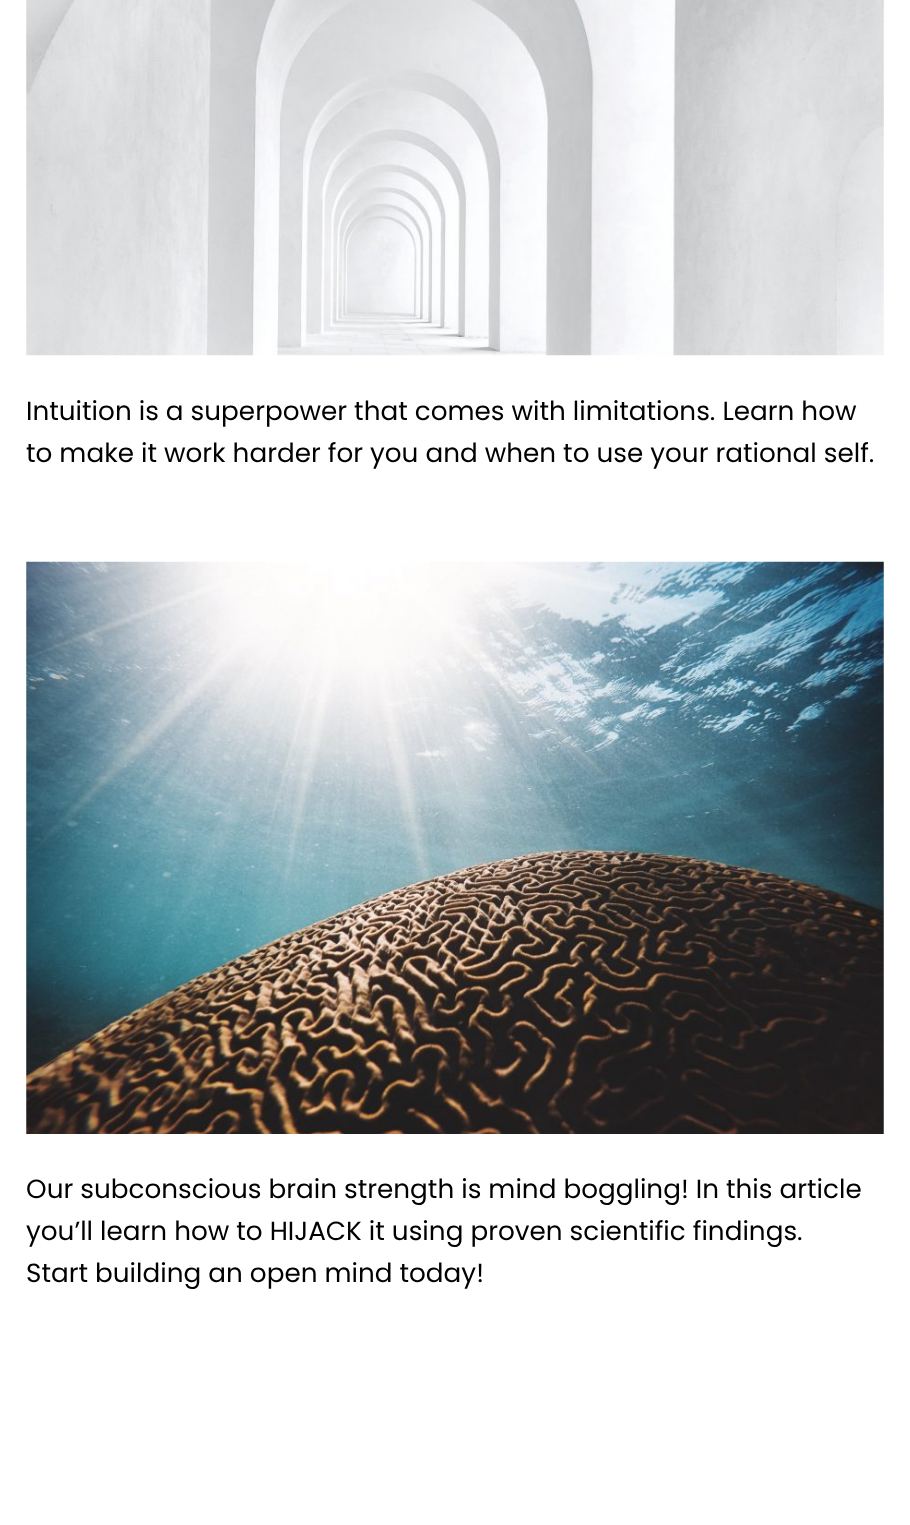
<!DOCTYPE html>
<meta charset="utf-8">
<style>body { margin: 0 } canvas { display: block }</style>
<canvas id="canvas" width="910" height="1525"></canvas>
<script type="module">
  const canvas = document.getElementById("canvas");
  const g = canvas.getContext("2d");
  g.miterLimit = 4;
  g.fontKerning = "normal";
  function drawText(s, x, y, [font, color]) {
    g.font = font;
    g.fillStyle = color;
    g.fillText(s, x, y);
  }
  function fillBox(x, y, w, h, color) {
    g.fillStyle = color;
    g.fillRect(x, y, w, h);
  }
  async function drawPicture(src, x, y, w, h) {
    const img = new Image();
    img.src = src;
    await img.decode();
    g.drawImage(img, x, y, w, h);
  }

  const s1 = ["26.25px Poppins", "#000000"];

  fillBox(0, 0, 910, 1525, "#FFFFFF");
  await drawPicture("pic1.png", 26, 0, 858, 356);
  drawText("Intuition is a superpower that comes with limitations. Learn how", 26, 420, s1);
  drawText("to make it work harder for you and when to use your rational self.", 26, 462, s1);
  await drawPicture("pic2.png", 26, 561, 858, 573);
  drawText("Our subconscious brain strength is mind boggling! In this article", 26, 1198, s1);
  drawText("you’ll learn how to HIJACK it using proven scientific findings.", 26, 1240, s1);
  drawText("Start building an open mind today!", 26, 1282, s1);
</script>
